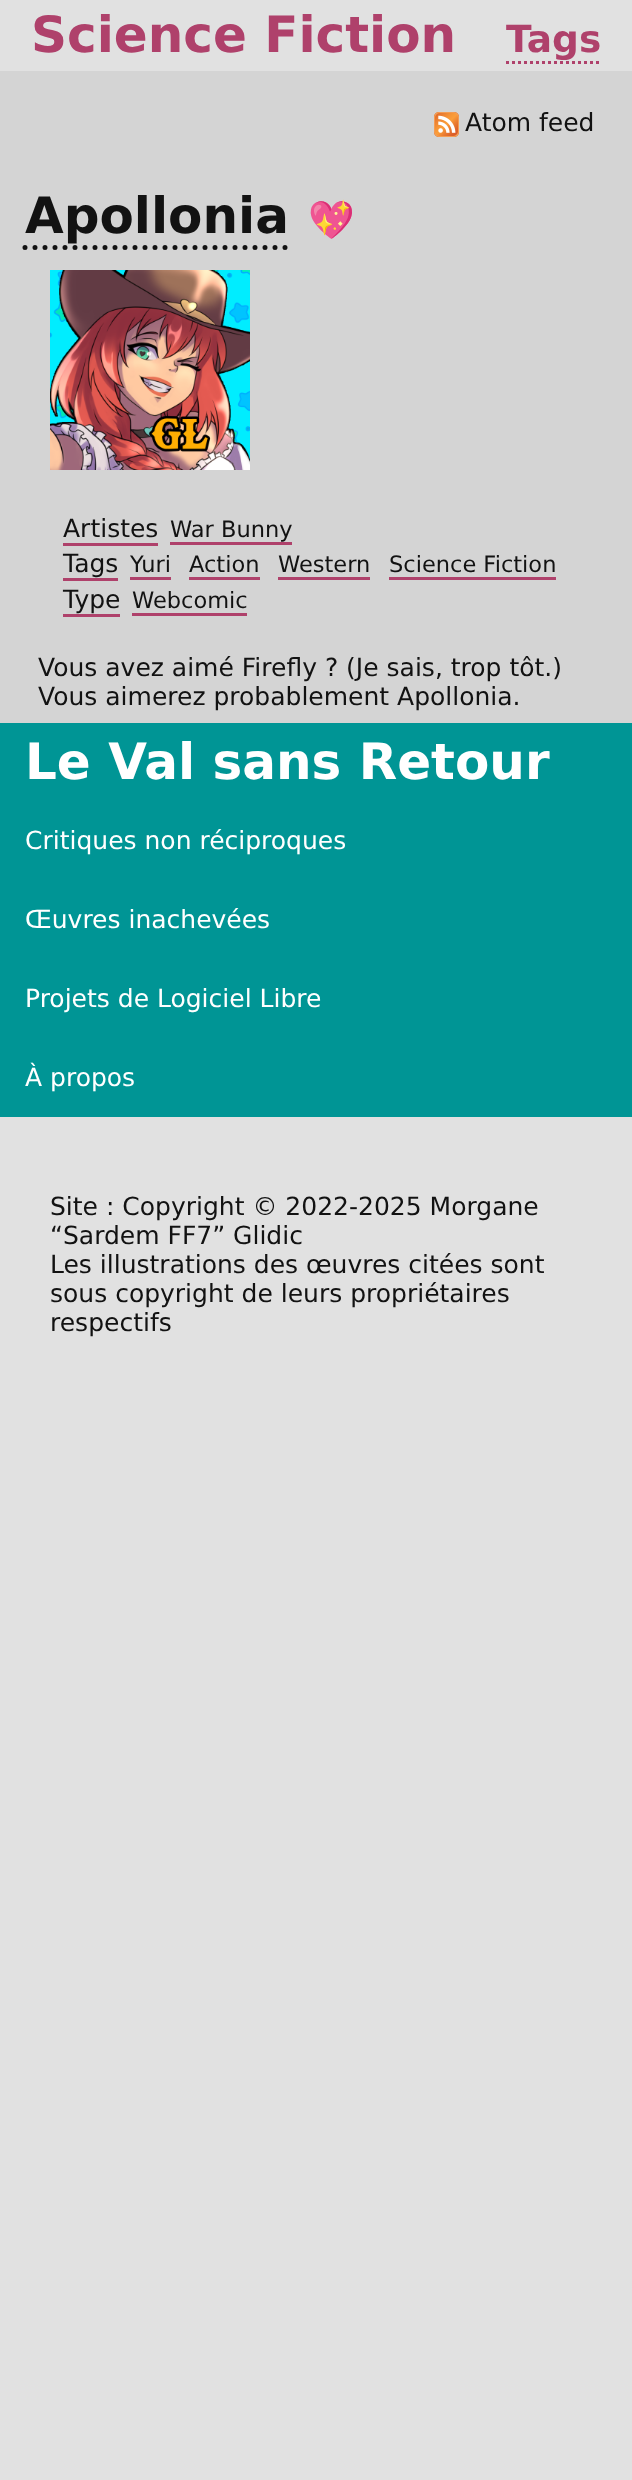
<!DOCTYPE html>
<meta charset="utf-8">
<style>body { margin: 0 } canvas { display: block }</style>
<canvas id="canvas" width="632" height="2480"></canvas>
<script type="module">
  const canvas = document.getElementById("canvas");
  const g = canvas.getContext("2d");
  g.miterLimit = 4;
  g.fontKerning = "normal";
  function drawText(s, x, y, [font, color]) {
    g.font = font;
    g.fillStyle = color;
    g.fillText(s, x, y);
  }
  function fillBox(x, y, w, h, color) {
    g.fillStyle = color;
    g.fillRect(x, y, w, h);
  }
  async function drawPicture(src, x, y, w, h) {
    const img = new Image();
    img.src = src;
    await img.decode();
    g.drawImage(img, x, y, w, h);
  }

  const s1 = ["bold 50px DejaVu Sans", "#AF416B"];
  const s2 = ["bold 37.5px DejaVu Sans", "#AF416B"];
  const s3 = ["25px DejaVu Sans", "#121212"];
  const s4 = ["bold 50px DejaVu Sans", "#121212"];
  const s5 = ["bold 37.5px Noto Color Emoji", "#121212"];
  const s6 = ["22.5px DejaVu Sans", "#121212"];
  const s7 = ["bold 50px DejaVu Sans", "#FFFFFF"];
  const s8 = ["25px DejaVu Sans", "#FFFFFF"];

  fillBox(0, 0, 632, 2480, "#E1E1E1");
  drawText("Science Fiction", 31, 52, s1);
  drawText("Tags", 506, 52, s2);
  g.beginPath();
  g.moveTo(506, 62.5);
  g.lineTo(601, 62.5);
  g.strokeStyle = "#AF416B";
  g.lineWidth = 3;
  g.setLineDash([3, 3]);
  g.stroke();
  fillBox(0, 71, 632, 652, "#D4D4D4");
  await drawPicture("pic1.png", 434, 112, 25, 25);
  drawText("Atom feed", 465, 131, s3);
  drawText("Apollonia", 25, 233, s4);
  g.beginPath();
  g.moveTo(25, 247.5);
  g.lineTo(289, 247.5);
  g.strokeStyle = "#121212";
  g.lineWidth = 5;
  g.lineCap = "round";
  g.setLineDash([0, 10]);
  g.stroke();
  drawText("💖", 308, 233, s5);
  await drawPicture("pic2.png", 50, 270, 200, 200);
  drawText("Artistes", 63, 537, s3);
  fillBox(63, 543, 95, 3, "#AF416B");
  drawText("War Bunny", 170, 537, s6);
  fillBox(170, 542, 122, 3, "#AF416B");
  drawText("Tags", 63, 572, s3);
  fillBox(63, 578, 55, 3, "#AF416B");
  drawText("Yuri", 130, 572, s6);
  fillBox(130, 577, 41, 3, "#AF416B");
  drawText("Action", 189, 572, s6);
  fillBox(189, 577, 71, 3, "#AF416B");
  drawText("Western", 278, 572, s6);
  fillBox(278, 577, 92, 3, "#AF416B");
  drawText("Science Fiction", 389, 572, s6);
  fillBox(389, 577, 167, 3, "#AF416B");
  drawText("Type", 63, 608, s3);
  fillBox(63, 614, 57, 3, "#AF416B");
  drawText("Webcomic", 132, 608, s6);
  fillBox(132, 613, 115, 3, "#AF416B");
  drawText("Vous avez aimé Firefly ? (Je sais, trop tôt.)", 38, 676, s3);
  drawText("Vous aimerez probablement Apollonia.", 38, 705, s3);
  fillBox(0, 723, 632, 394, "#009595");
  drawText("Le Val sans Retour", 25, 779, s7);
  drawText("Critiques non réciproques", 25, 849, s8);
  drawText("Œuvres inachevées", 25, 928, s8);
  drawText("Projets de Logiciel Libre", 25, 1007, s8);
  drawText("À propos", 25, 1086, s8);
  drawText("Site : Copyright © 2022-2025 Morgane", 50, 1215, s3);
  drawText("“Sardem FF7” Glidic", 50, 1244, s3);
  drawText("Les illustrations des œuvres citées sont", 50, 1273, s3);
  drawText("sous copyright de leurs propriétaires", 50, 1302, s3);
  drawText("respectifs", 50, 1331, s3);
</script>
